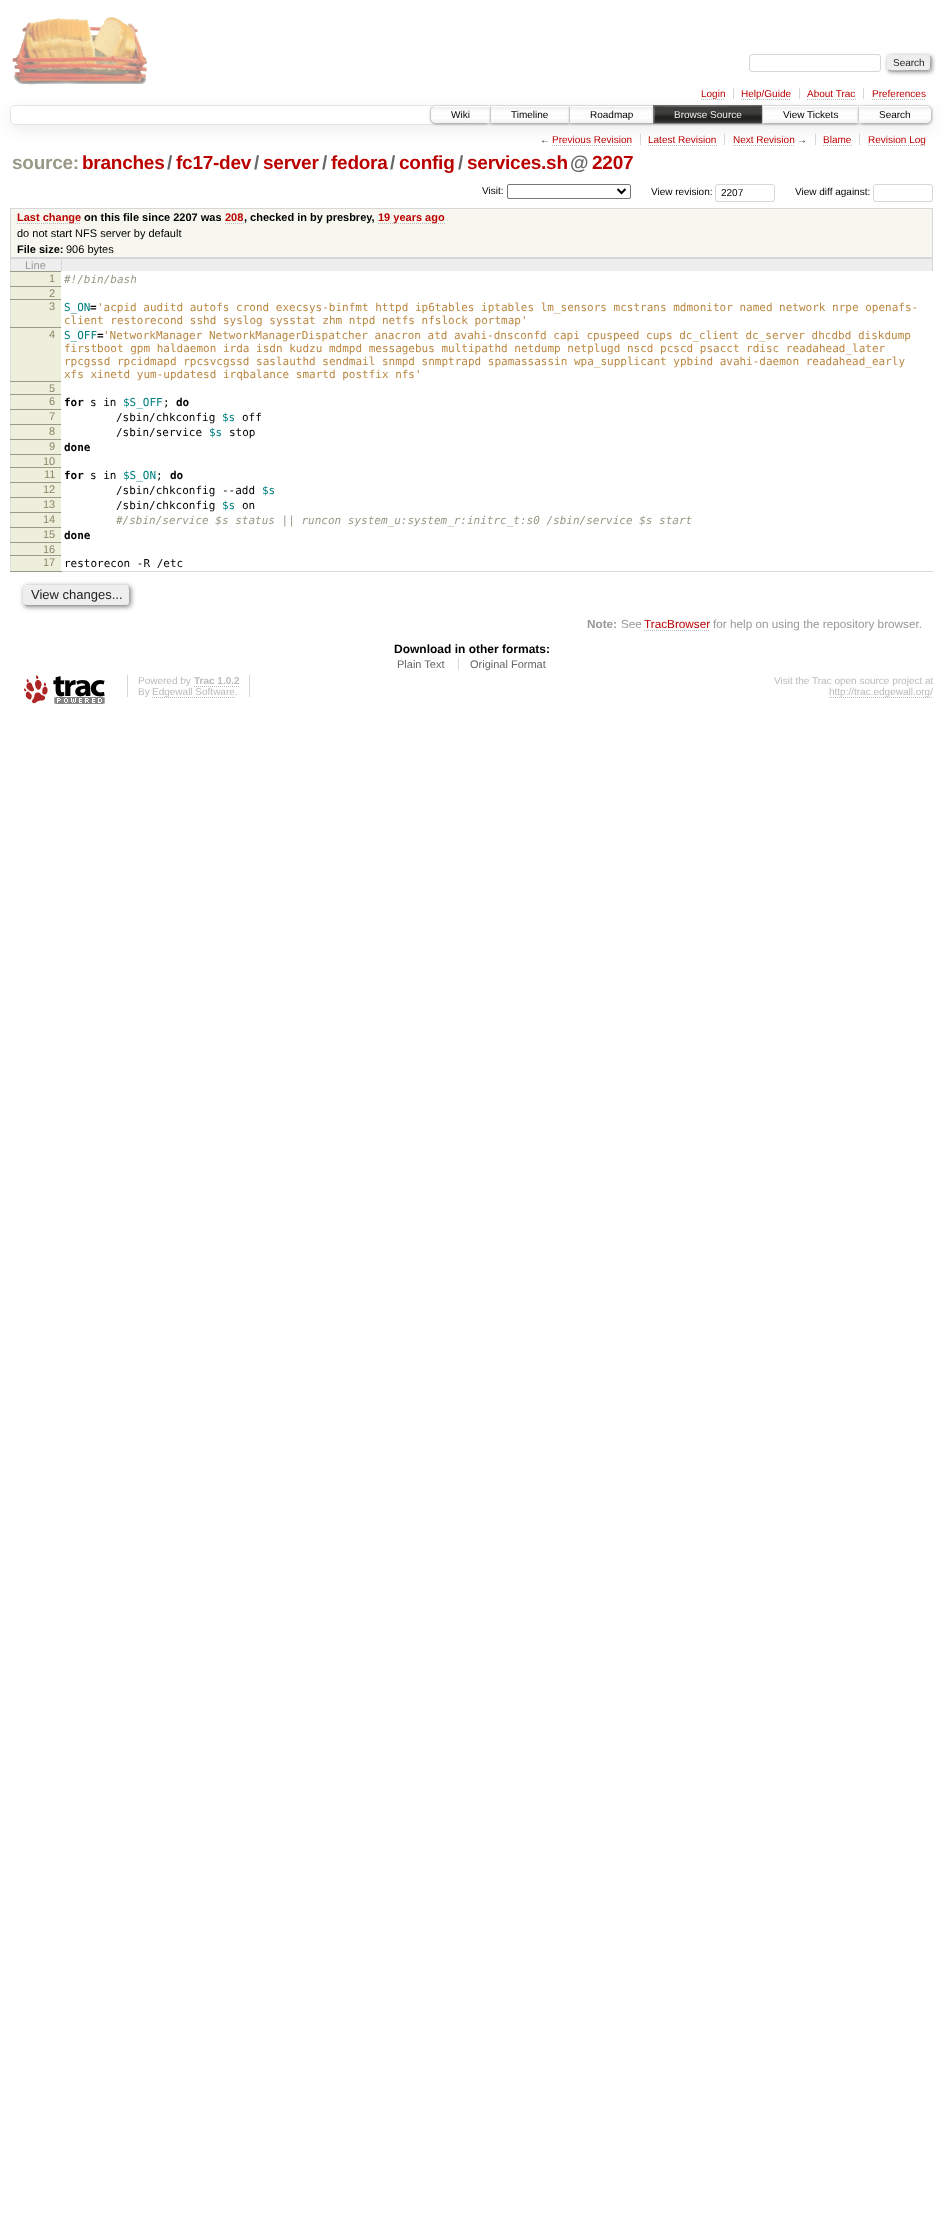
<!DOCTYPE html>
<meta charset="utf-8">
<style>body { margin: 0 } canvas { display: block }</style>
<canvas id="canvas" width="943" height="2219"></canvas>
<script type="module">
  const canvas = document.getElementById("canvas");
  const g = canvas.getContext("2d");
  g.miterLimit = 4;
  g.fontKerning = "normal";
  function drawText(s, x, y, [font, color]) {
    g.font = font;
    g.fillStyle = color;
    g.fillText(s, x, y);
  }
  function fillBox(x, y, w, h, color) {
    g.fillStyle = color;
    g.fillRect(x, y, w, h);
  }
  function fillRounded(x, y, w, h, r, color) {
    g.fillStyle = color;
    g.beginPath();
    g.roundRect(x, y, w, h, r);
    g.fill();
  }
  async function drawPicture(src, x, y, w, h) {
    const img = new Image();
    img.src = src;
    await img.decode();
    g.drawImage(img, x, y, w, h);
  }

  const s1 = ["10px Liberation Sans", "#222222"];
  const s2 = ["10px Liberation Sans", "#BB0000"];
  const s3 = ["10px Liberation Sans", "#000000"];
  const s4 = ["10px Liberation Sans", "#EEEEEE"];
  const s5 = ["bold 19px Liberation Sans", "#999988"];
  const s6 = ["bold 19px Liberation Sans", "#BB0000"];
  const s7 = ["bold 19px Liberation Sans", "#666666"];
  const s8 = ["bold 11px Liberation Sans", "#BB0000"];
  const s9 = ["bold 11px Liberation Sans", "#000000"];
  const s10 = ["11px Liberation Sans", "#000000"];
  const s11 = ["11px Liberation Sans", "#999999"];
  const s12 = ["11px Liberation Sans", "#888866"];
  const s13 = ["italic 11px DejaVu Sans Mono", "#999988"];
  const s14 = ["11px DejaVu Sans Mono", "#008080"];
  const s15 = ["bold 11px DejaVu Sans Mono", "#000000"];
  const s16 = ["11px DejaVu Sans Mono", "#BB8844"];
  const s17 = ["11px DejaVu Sans Mono", "#000000"];
  const s18 = ["13px Liberation Sans", "#222222"];
  const s19 = ["bold 11.75px Liberation Sans", "#999999"];
  const s20 = ["11.75px Liberation Sans", "#999999"];
  const s21 = ["11.75px Liberation Sans", "#BB0000"];
  const s22 = ["bold 12px Liberation Sans", "#000000"];
  const s23 = ["11px Liberation Sans", "#666666"];
  const s24 = ["10px Liberation Sans", "#BBBBBB"];
  const s25 = ["bold 10px Liberation Sans", "#BBBBBB"];

  fillBox(0, 0, 943, 2219, "#FFFFFF");
  await drawPicture("pic1.png", 12, 17, 135, 68);
  g.beginPath();
  g.roundRect(749.5, 54.5, 131, 17, 2.5);
  g.strokeStyle = "#D7D7D7";
  g.stroke();
  g.fillStyle = "#888888";
  g.filter = "blur(2px)";
  g.beginPath();
  g.roundRect(888, 56, 44, 16, 3);
  g.fill();
  g.filter = "none";
  fillRounded(887, 55, 44, 16, 3, "#EEEEEE");
  g.beginPath();
  g.moveTo(930, 56);
  g.bezierCurveTo(931.5, 58, 930.5, 61, 930.5, 63);
  g.bezierCurveTo(930.5, 71.5, 931, 70.5, 921.5, 70.5);
  g.lineTo(909, 70.5);
  g.bezierCurveTo(906, 70.5, 890, 71.5, 888, 70);
  g.strokeStyle = "#9F9F9F";
  g.stroke();
  g.beginPath();
  g.moveTo(888, 70);
  g.bezierCurveTo(886.5, 68, 887.5, 65, 887.5, 63);
  g.bezierCurveTo(887.5, 54.5, 887, 55.5, 896.5, 55.5);
  g.lineTo(909, 55.5);
  g.bezierCurveTo(912, 55.5, 928, 54.5, 930, 56);
  g.strokeStyle = "#EEEEEE";
  g.stroke();
  drawText("Search", 893, 66, s1);
  g.save();
  g.beginPath();
  g.moveTo(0, 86);
  g.lineTo(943, 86);
  g.lineTo(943, 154);
  g.lineTo(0, 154);
  g.closePath();
  g.moveTo(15, 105);
  g.lineTo(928, 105);
  g.bezierCurveTo(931, 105, 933, 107, 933, 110);
  g.lineTo(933, 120);
  g.bezierCurveTo(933, 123, 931, 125, 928, 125);
  g.lineTo(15, 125);
  g.bezierCurveTo(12, 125, 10, 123, 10, 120);
  g.lineTo(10, 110);
  g.bezierCurveTo(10, 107, 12, 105, 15, 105);
  g.closePath();
  g.clip("evenodd");
  g.fillStyle = "#EEEEEE";
  g.filter = "blur(7.5px)";
  g.beginPath();
  g.roundRect(10, 110, 923, 20, 5);
  g.fill();
  g.filter = "none";
  g.restore();
  fillBox(733, 88, 1, 11, "#D7D7D7");
  g.beginPath();
  g.moveTo(701, 99.5);
  g.lineTo(725, 99.5);
  g.strokeStyle = "#BBBBBB";
  g.setLineDash([1, 1]);
  g.stroke();
  drawText("Login", 701, 97, s2);
  fillBox(799, 88, 1, 11, "#D7D7D7");
  g.beginPath();
  g.moveTo(741, 99.5);
  g.lineTo(791, 99.5);
  g.stroke();
  drawText("Help/Guide", 741, 97, s2);
  fillBox(863, 88, 1, 11, "#D7D7D7");
  drawText("About Trac", 807, 97, s2);
  g.beginPath();
  g.moveTo(807, 99.5);
  g.lineTo(856, 99.5);
  g.stroke();
  drawText("Preferences", 872, 97, s2);
  g.beginPath();
  g.moveTo(872, 99.5);
  g.lineTo(926, 99.5);
  g.stroke();
  g.beginPath();
  g.roundRect(10.5, 105.5, 922, 19, 4.5);
  g.strokeStyle = "#E4E4E4";
  g.setLineDash([]);
  g.stroke();
  g.fillStyle = "#FFFFFF";
  g.beginPath();
  g.roundRect(430, 105, 61, 19, [5, 0, 0, 5]);
  g.fill();
  await drawPicture("pic2.png", 430, 107, 60, 17);
  g.beginPath();
  g.roundRect(430.5, 105.5, 60, 18, [4.5, 0, 0, 4.5]);
  g.stroke();
  g.save();
  g.beginPath();
  g.moveTo(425, 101);
  g.lineTo(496, 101);
  g.lineTo(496, 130);
  g.lineTo(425, 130);
  g.closePath();
  g.moveTo(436, 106);
  g.lineTo(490, 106);
  g.lineTo(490, 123);
  g.lineTo(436, 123);
  g.bezierCurveTo(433, 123, 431, 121, 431, 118);
  g.lineTo(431, 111);
  g.bezierCurveTo(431, 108, 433, 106, 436, 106);
  g.closePath();
  g.clip("evenodd");
  g.fillStyle = "#999999";
  g.filter = "blur(1.5px)";
  g.beginPath();
  g.roundRect(431, 107, 59, 17, 5);
  g.fill();
  g.filter = "none";
  g.restore();
  drawText("Wiki", 451, 118, s3);
  fillBox(491, 108, 2, 15, "#FFFFFF");
  await drawPicture("pic3.png", 491, 107, 78, 16);
  g.strokeRect(490.5, 105.5, 79, 18);
  g.save();
  g.beginPath();
  g.moveTo(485, 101);
  g.lineTo(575, 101);
  g.lineTo(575, 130);
  g.lineTo(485, 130);
  g.closePath();
  g.moveTo(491, 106);
  g.lineTo(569, 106);
  g.lineTo(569, 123);
  g.lineTo(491, 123);
  g.closePath();
  g.clip("evenodd");
  g.fillStyle = "#999999";
  g.filter = "blur(1.5px)";
  g.beginPath();
  g.rect(491, 107, 78, 17);
  g.fill();
  g.filter = "none";
  g.restore();
  drawText("Timeline", 511, 118, s3);
  fillBox(570, 106, 2, 17, "#FFFFFF");
  await drawPicture("pic4.png", 570, 107, 83, 16);
  g.strokeRect(569.5, 105.5, 84, 18);
  g.save();
  g.beginPath();
  g.moveTo(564, 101);
  g.lineTo(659, 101);
  g.lineTo(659, 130);
  g.lineTo(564, 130);
  g.closePath();
  g.moveTo(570, 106);
  g.lineTo(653, 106);
  g.lineTo(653, 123);
  g.lineTo(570, 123);
  g.closePath();
  g.clip("evenodd");
  g.fillStyle = "#999999";
  g.filter = "blur(1.5px)";
  g.beginPath();
  g.rect(570, 107, 83, 17);
  g.fill();
  g.filter = "none";
  g.restore();
  drawText("Roadmap", 590, 118, s3);
  g.strokeStyle = "#666666";
  g.strokeRect(653.5, 105.5, 109, 18);
  g.fillStyle = "#999999";
  g.filter = "blur(1.5px)";
  g.beginPath();
  g.rect(654, 107, 108, 17);
  g.fill();
  g.filter = "none";
  fillBox(654, 106, 108, 17, "#000000");
  await drawPicture("pic5.png", 654, 106, 108, 17);
  drawText("Browse Source", 674, 118, s4);
  fillBox(763, 106, 2, 17, "#FFFFFF");
  await drawPicture("pic6.png", 763, 107, 95, 16);
  g.strokeStyle = "#E4E4E4";
  g.strokeRect(762.5, 105.5, 96, 18);
  g.save();
  g.beginPath();
  g.moveTo(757, 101);
  g.lineTo(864, 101);
  g.lineTo(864, 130);
  g.lineTo(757, 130);
  g.closePath();
  g.moveTo(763, 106);
  g.lineTo(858, 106);
  g.lineTo(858, 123);
  g.lineTo(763, 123);
  g.closePath();
  g.clip("evenodd");
  g.fillStyle = "#999999";
  g.filter = "blur(1.5px)";
  g.beginPath();
  g.rect(763, 107, 95, 17);
  g.fill();
  g.filter = "none";
  g.restore();
  drawText("View Tickets", 783, 118, s3);
  g.fillStyle = "#FFFFFF";
  g.beginPath();
  g.roundRect(858, 105, 74, 19, [0, 5, 5, 0]);
  g.fill();
  await drawPicture("pic7.png", 859, 107, 73, 17);
  g.beginPath();
  g.roundRect(858.5, 105.5, 73, 18, [0, 4.5, 4.5, 0]);
  g.stroke();
  g.save();
  g.beginPath();
  g.moveTo(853, 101);
  g.lineTo(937, 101);
  g.lineTo(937, 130);
  g.lineTo(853, 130);
  g.closePath();
  g.moveTo(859, 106);
  g.lineTo(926, 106);
  g.bezierCurveTo(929, 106, 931, 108, 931, 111);
  g.lineTo(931, 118);
  g.bezierCurveTo(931, 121, 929, 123, 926, 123);
  g.lineTo(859, 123);
  g.closePath();
  g.clip("evenodd");
  g.fillStyle = "#999999";
  g.filter = "blur(1.5px)";
  g.beginPath();
  g.roundRect(859, 107, 72, 17, 5);
  g.fill();
  g.filter = "none";
  g.restore();
  drawText("Search", 879, 118, s3);
  fillBox(640, 134, 1, 11, "#D7D7D7");
  drawText("←", 540, 143, s3);
  g.beginPath();
  g.moveTo(552, 145.5);
  g.lineTo(632, 145.5);
  g.strokeStyle = "#BBBBBB";
  g.setLineDash([1, 1]);
  g.stroke();
  drawText("Previous Revision", 552, 143, s2);
  fillBox(724, 134, 1, 11, "#D7D7D7");
  drawText("Latest Revision", 648, 143, s2);
  g.beginPath();
  g.moveTo(648, 145.5);
  g.lineTo(717, 145.5);
  g.stroke();
  fillBox(815, 134, 1, 11, "#D7D7D7");
  drawText("Next Revision", 733, 143, s2);
  g.beginPath();
  g.moveTo(733, 145.5);
  g.lineTo(795, 145.5);
  g.stroke();
  drawText("→", 797, 143, s3);
  fillBox(859, 134, 1, 11, "#D7D7D7");
  drawText("Blame", 823, 143, s2);
  g.beginPath();
  g.moveTo(823, 145.5);
  g.lineTo(852, 145.5);
  g.stroke();
  g.beginPath();
  g.moveTo(868, 145.5);
  g.lineTo(926, 145.5);
  g.stroke();
  drawText("Revision Log", 868, 143, s2);
  g.letterSpacing = "-0.25px";
  drawText("source:", 12, 169, s5);
  drawText("branches", 82, 169, s6);
  drawText("/", 167, 169, s7);
  drawText("fc17-dev", 176, 169, s6);
  drawText("/", 254, 169, s7);
  drawText("server", 263, 169, s6);
  drawText("/", 322, 169, s7);
  drawText("fedora", 331, 169, s6);
  drawText("/", 390, 169, s7);
  drawText("config", 399, 169, s6);
  drawText("/", 458, 169, s7);
  drawText("services.sh", 467, 169, s6);
  drawText("@", 570, 169, s7);
  drawText("2207", 592, 169, s6);
  g.letterSpacing = "0px";
  drawText("Visit:", 482, 194, s3);
  g.beginPath();
  g.roundRect(507.5, 184.5, 123, 14, 1.5);
  g.strokeStyle = "#767676";
  g.setLineDash([]);
  g.stroke();
  g.beginPath();
  g.moveTo(617.5, 189);
  g.lineTo(621.5, 193);
  g.lineTo(625.5, 189);
  g.strokeStyle = "#000000";
  g.lineWidth = 2;
  g.stroke();
  drawText("View revision:", 651, 195, s3);
  g.beginPath();
  g.roundRect(715.5, 184.5, 59, 17, 2.5);
  g.strokeStyle = "#D7D7D7";
  g.lineWidth = 1;
  g.stroke();
  drawText("2207", 721, 196, s3);
  drawText("View diff against:", 795, 195, s3);
  g.beginPath();
  g.roundRect(873.5, 184.5, 59, 17, 2.5);
  g.stroke();
  fillBox(11, 209, 921, 48, "#F7F7F0");
  fillBox(10, 208, 923, 1, "#D7D7D7");
  fillBox(932, 208, 1, 50, "#D7D7D7");
  fillBox(10, 257, 923, 1, "#D7D7D7");
  fillBox(10, 208, 1, 50, "#D7D7D7");
  g.beginPath();
  g.moveTo(17, 223.5);
  g.lineTo(81, 223.5);
  g.strokeStyle = "#BBBBBB";
  g.setLineDash([1, 1]);
  g.stroke();
  drawText("Last change", 17, 221, s8);
  drawText("on this file since 2207 was", 84, 221, s9);
  drawText("208", 225, 221, s8);
  g.beginPath();
  g.moveTo(225, 223.5);
  g.lineTo(244, 223.5);
  g.stroke();
  drawText(", checked in by presbrey,", 244, 221, s9);
  g.beginPath();
  g.moveTo(378, 223.5);
  g.lineTo(445, 223.5);
  g.stroke();
  drawText("19 years ago", 378, 221, s8);
  drawText("do not start NFS server by default", 17, 237, s10);
  drawText("File size:", 17, 253, s9);
  drawText("906 bytes", 66, 253, s10);
  fillBox(62, 571, 871, 1, "#DDDDDD");
  fillBox(10, 258, 1, 314, "#DDDDDD");
  fillBox(62, 259, 870, 12, "#EEEEEE");
  fillBox(10, 258, 923, 1, "#D7D7D7");
  fillBox(932, 258, 1, 14, "#D7D7D7");
  fillBox(11, 259, 50, 12, "#EEEEEE");
  fillBox(61, 258, 1, 14, "#D7D7D7");
  fillBox(10, 271, 52, 1, "#999988");
  drawText("Line", 25, 269, s11);
  fillBox(11, 272, 50, 14, "#EEEEDD");
  fillBox(10, 286, 52, 1, "#999988");
  drawText("1", 49, 282, s12);
  fillBox(61, 271, 872, 16, "#FFFFFF");
  drawText("#!/bin/bash", 64, 283, s13);
  fillBox(11, 287, 50, 12, "#EEEEDD");
  fillBox(10, 299, 52, 1, "#999988");
  drawText("2", 49, 297, s12);
  fillBox(61, 299, 1, 1, "#FFFFFF");
  fillBox(11, 300, 50, 27, "#EEEEDD");
  fillBox(10, 327, 52, 1, "#999988");
  drawText("3", 49, 310, s12);
  fillBox(61, 327, 1, 1, "#FFFFFF");
  drawText("S_ON", 64, 311, s14);
  drawText("=", 90, 311, s15);
  drawText("'acpid auditd autofs crond execsys-binfmt httpd ip6tables iptables lm_sensors mcstrans mdmonitor named network nrpe openafs-", 97, 311, s16);
  drawText("client restorecond sshd syslog sysstat zhm ntpd netfs nfslock portmap'", 64, 324, s16);
  fillBox(11, 328, 50, 53, "#EEEEDD");
  fillBox(10, 381, 52, 1, "#999988");
  drawText("4", 49, 338, s12);
  fillBox(61, 381, 1, 1, "#FFFFFF");
  drawText("S_OFF", 64, 339, s14);
  drawText("=", 97, 339, s15);
  drawText("'NetworkManager NetworkManagerDispatcher anacron atd avahi-dnsconfd capi cpuspeed cups dc_client dc_server dhcdbd diskdump", 103, 339, s16);
  drawText("firstboot gpm haldaemon irda isdn kudzu mdmpd messagebus multipathd netdump netplugd nscd pcscd psacct rdisc readahead_later", 64, 352, s16);
  drawText("rpcgssd rpcidmapd rpcsvcgssd saslauthd sendmail snmpd snmptrapd spamassassin wpa_supplicant ypbind avahi-daemon readahead_early", 64, 365, s16);
  drawText("xfs xinetd yum-updatesd irqbalance smartd postfix nfs'", 64, 378, s16);
  fillBox(11, 382, 50, 12, "#EEEEDD");
  fillBox(10, 394, 52, 1, "#999988");
  drawText("5", 49, 392, s12);
  fillBox(61, 394, 1, 1, "#FFFFFF");
  fillBox(11, 395, 50, 14, "#EEEEDD");
  fillBox(10, 409, 52, 1, "#999988");
  drawText("6", 49, 405, s12);
  fillBox(61, 409, 1, 1, "#FFFFFF");
  drawText("for", 64, 406, s15);
  drawText("s in", 90, 406, s17);
  drawText("$S_OFF", 123, 406, s14);
  drawText(";", 163, 406, s17);
  drawText("do", 176, 406, s15);
  fillBox(11, 410, 50, 14, "#EEEEDD");
  fillBox(10, 424, 52, 1, "#999988");
  drawText("7", 49, 420, s12);
  fillBox(61, 424, 1, 1, "#FFFFFF");
  drawText("/sbin/chkconfig", 116, 421, s17);
  drawText("$s", 222, 421, s14);
  drawText("off", 242, 421, s17);
  fillBox(11, 425, 50, 14, "#EEEEDD");
  fillBox(10, 439, 52, 1, "#999988");
  drawText("8", 49, 435, s12);
  fillBox(61, 439, 1, 1, "#FFFFFF");
  drawText("/sbin/service", 116, 436, s17);
  drawText("$s", 209, 436, s14);
  drawText("stop", 229, 436, s17);
  fillBox(11, 440, 50, 14, "#EEEEDD");
  fillBox(10, 454, 52, 1, "#999988");
  drawText("9", 49, 450, s12);
  fillBox(61, 454, 1, 1, "#FFFFFF");
  drawText("done", 64, 451, s15);
  fillBox(11, 455, 50, 12, "#EEEEDD");
  fillBox(10, 467, 52, 1, "#999988");
  drawText("10", 43, 465, s12);
  fillBox(61, 467, 1, 1, "#FFFFFF");
  fillBox(11, 468, 50, 14, "#EEEEDD");
  fillBox(10, 482, 52, 1, "#999988");
  drawText("11", 44, 478, s12);
  fillBox(61, 482, 1, 1, "#FFFFFF");
  drawText("for", 64, 479, s15);
  drawText("s in", 90, 479, s17);
  drawText("$S_ON", 123, 479, s14);
  drawText(";", 156, 479, s17);
  drawText("do", 170, 479, s15);
  fillBox(11, 483, 50, 14, "#EEEEDD");
  fillBox(10, 497, 52, 1, "#999988");
  drawText("12", 43, 493, s12);
  fillBox(61, 497, 1, 1, "#FFFFFF");
  drawText("/sbin/chkconfig --add", 116, 494, s17);
  drawText("$s", 262, 494, s14);
  fillBox(11, 498, 50, 14, "#EEEEDD");
  fillBox(10, 512, 52, 1, "#999988");
  drawText("13", 43, 508, s12);
  fillBox(61, 512, 1, 1, "#FFFFFF");
  drawText("/sbin/chkconfig", 116, 509, s17);
  drawText("$s", 222, 509, s14);
  drawText("on", 242, 509, s17);
  fillBox(11, 513, 50, 14, "#EEEEDD");
  fillBox(10, 527, 52, 1, "#999988");
  drawText("14", 43, 523, s12);
  fillBox(61, 527, 1, 1, "#FFFFFF");
  drawText("#/sbin/service $s status || runcon system_u:system_r:initrc_t:s0 /sbin/service $s start", 116, 524, s13);
  fillBox(11, 528, 50, 14, "#EEEEDD");
  fillBox(10, 542, 52, 1, "#999988");
  drawText("15", 43, 538, s12);
  fillBox(61, 542, 1, 1, "#FFFFFF");
  drawText("done", 64, 539, s15);
  fillBox(11, 543, 50, 12, "#EEEEDD");
  fillBox(10, 555, 52, 1, "#999988");
  drawText("16", 43, 553, s12);
  fillBox(61, 555, 1, 1, "#FFFFFF");
  fillBox(11, 556, 50, 15, "#EEEEDD");
  fillBox(10, 571, 52, 1, "#999988");
  drawText("17", 43, 566, s12);
  drawText("restorecon -R /etc", 64, 567, s17);
  g.fillStyle = "#888888";
  g.filter = "blur(2.5px)";
  g.beginPath();
  g.roundRect(24, 586, 107, 21, 4);
  g.fill();
  g.filter = "none";
  fillRounded(23, 585, 107, 21, 4, "#EEEEEE");
  g.beginPath();
  g.moveTo(128.5, 586.5);
  g.bezierCurveTo(130.5, 588.5, 129.5, 595, 129.5, 597.5);
  g.bezierCurveTo(129.5, 600.5, 130.5, 605.5, 126, 605.5);
  g.lineTo(26, 605.5);
  g.lineTo(24.5, 604.5);
  g.strokeStyle = "#9F9F9F";
  g.setLineDash([]);
  g.stroke();
  g.beginPath();
  g.moveTo(24.5, 604.5);
  g.bezierCurveTo(22.5, 602.5, 23.5, 596, 23.5, 593.5);
  g.bezierCurveTo(23.5, 590.5, 22.5, 585.5, 27, 585.5);
  g.lineTo(127, 585.5);
  g.lineTo(128.5, 586.5);
  g.strokeStyle = "#EEEEEE";
  g.stroke();
  drawText("View changes...", 31, 599, s18);
  drawText("Note:", 587, 628, s19);
  drawText("See", 621, 628, s20);
  drawText("TracBrowser", 644, 628, s21);
  g.beginPath();
  g.moveTo(644, 630.5);
  g.lineTo(710, 630.5);
  g.strokeStyle = "#BBBBBB";
  g.setLineDash([1, 1]);
  g.stroke();
  drawText("for help on using the repository browser.", 713, 628, s20);
  drawText("Download in other formats:", 394, 653, s22);
  drawText("Plain Text", 397, 668, s23);
  fillBox(458, 658, 1, 12, "#D7D7D7");
  drawText("Original Format", 470, 668, s23);
  await drawPicture("pic8.png", 24, 675, 81, 29);
  fillBox(249, 675, 1, 22, "#D7D7D7");
  fillBox(127, 675, 1, 22, "#D7D7D7");
  drawText("Powered by", 138, 684, s24);
  drawText("Trac 1.0.2", 194, 684, s25);
  g.beginPath();
  g.moveTo(194, 686.5);
  g.lineTo(239, 686.5);
  g.stroke();
  drawText("By", 138, 695, s24);
  g.beginPath();
  g.moveTo(152, 697.5);
  g.lineTo(235, 697.5);
  g.stroke();
  drawText("Edgewall Software.", 152, 695, s24);
  drawText("Visit the Trac open source project at", 774, 684, s24);
  g.beginPath();
  g.moveTo(829, 697.5);
  g.lineTo(933, 697.5);
  g.stroke();
  drawText("http://trac.edgewall.org/", 829, 695, s24);
</script>
